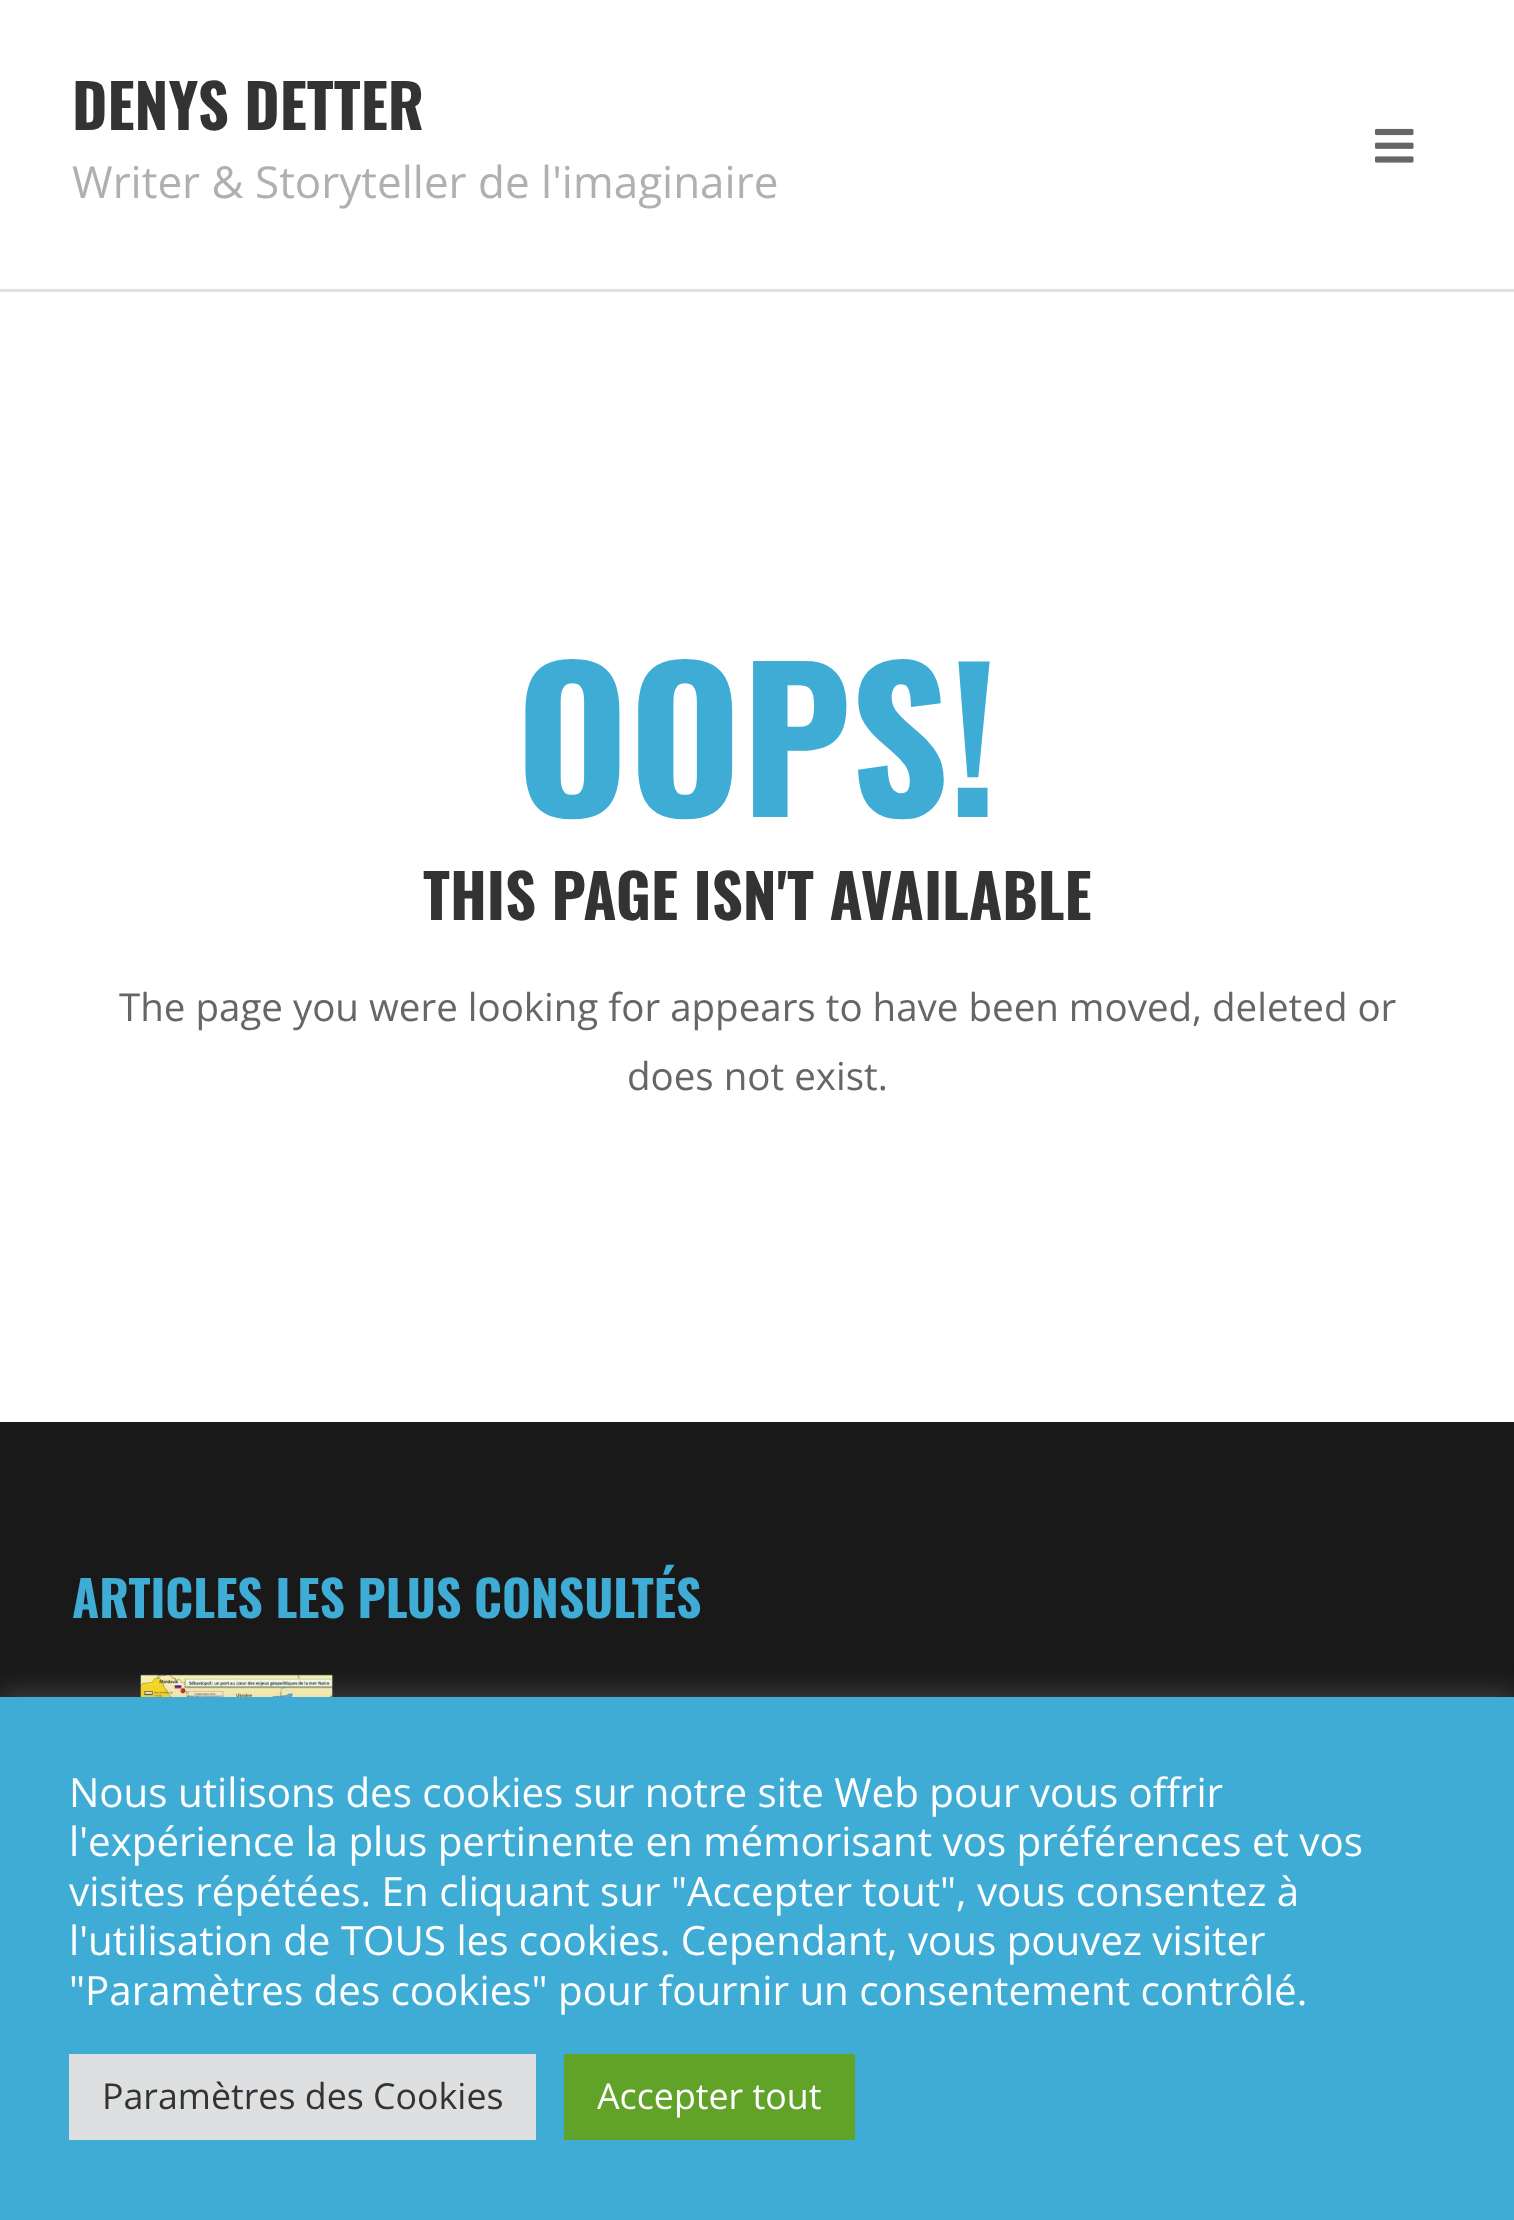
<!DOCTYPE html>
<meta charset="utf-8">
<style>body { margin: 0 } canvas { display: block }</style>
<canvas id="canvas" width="1514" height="2220"></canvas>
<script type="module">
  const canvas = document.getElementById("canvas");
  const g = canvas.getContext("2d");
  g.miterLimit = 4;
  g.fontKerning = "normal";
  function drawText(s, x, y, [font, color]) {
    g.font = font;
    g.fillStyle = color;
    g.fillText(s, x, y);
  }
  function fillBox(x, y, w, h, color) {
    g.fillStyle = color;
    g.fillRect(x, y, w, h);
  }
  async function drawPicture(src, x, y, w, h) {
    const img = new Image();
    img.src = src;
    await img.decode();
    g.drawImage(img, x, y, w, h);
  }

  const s1 = ["bold 60.5px Oswald", "#333333"];
  const s2 = ["44px Open Sans", "#B0B0B0"];
  const s3 = ["bold 192.5px Oswald", "#3FACD6"];
  const s4 = ["38.5px Open Sans", "#666666"];
  const s5 = ["bold 49.5px Oswald", "#3FACD6"];
  const s6 = ["40.3px Open Sans", "#FFFFFF"];
  const s7 = ["35.75px Open Sans", "#333333"];
  const s8 = ["35.75px Open Sans", "#FFFFFF"];

  fillBox(0, 0, 1514, 2220, "#FFFFFF");
  fillBox(0, 289, 1514, 3, "#E1E1E1");
  drawText("DENYS DETTER", 72, 130, s1);
  drawText("Writer & Storyteller de l'imaginaire", 72, 198, s2);
  await drawPicture("pic1.png", 1375, 128, 39, 35);
  drawText("OOPS!", 516, 817, s3);
  drawText("THIS PAGE ISN'T AVAILABLE", 423, 920, s1);
  drawText("The page you were looking for appears to have been moved, deleted or", 119, 1021, s4);
  drawText("does not exist.", 627, 1090, s4);
  fillBox(0, 1422, 1514, 275, "#191919");
  drawText("ARTICLES LES PLUS CONSULTÉS", 72, 1618, s5);
  await drawPicture("pic2.png", 140, 1674, 193, 23);
  g.fillStyle = "rgba(172, 171, 171, 0.3)";
  g.filter = "blur(14px)";
  g.beginPath();
  g.rect(0, 1694, 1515, 525);
  g.fill();
  g.filter = "none";
  fillBox(0, 1697, 1514, 523, "#3FACD6");
  drawText("Nous utilisons des cookies sur notre site Web pour vous offrir", 69, 1807, s6);
  drawText("l'expérience la plus pertinente en mémorisant vos préférences et vos", 69, 1856, s6);
  drawText("visites répétées. En cliquant sur \"Accepter tout\", vous consentez à", 69, 1906, s6);
  drawText("l'utilisation de TOUS les cookies. Cependant, vous pouvez visiter", 69, 1955, s6);
  drawText("\"Paramètres des cookies\" pour fournir un consentement contrôlé.", 69, 2005, s6);
  fillBox(69, 2054, 467, 86, "#DEDFE0");
  drawText("Paramètres des Cookies", 102, 2109, s7);
  fillBox(564, 2054, 291, 86, "#61A229");
  drawText("Accepter tout", 597, 2109, s8);
</script>
